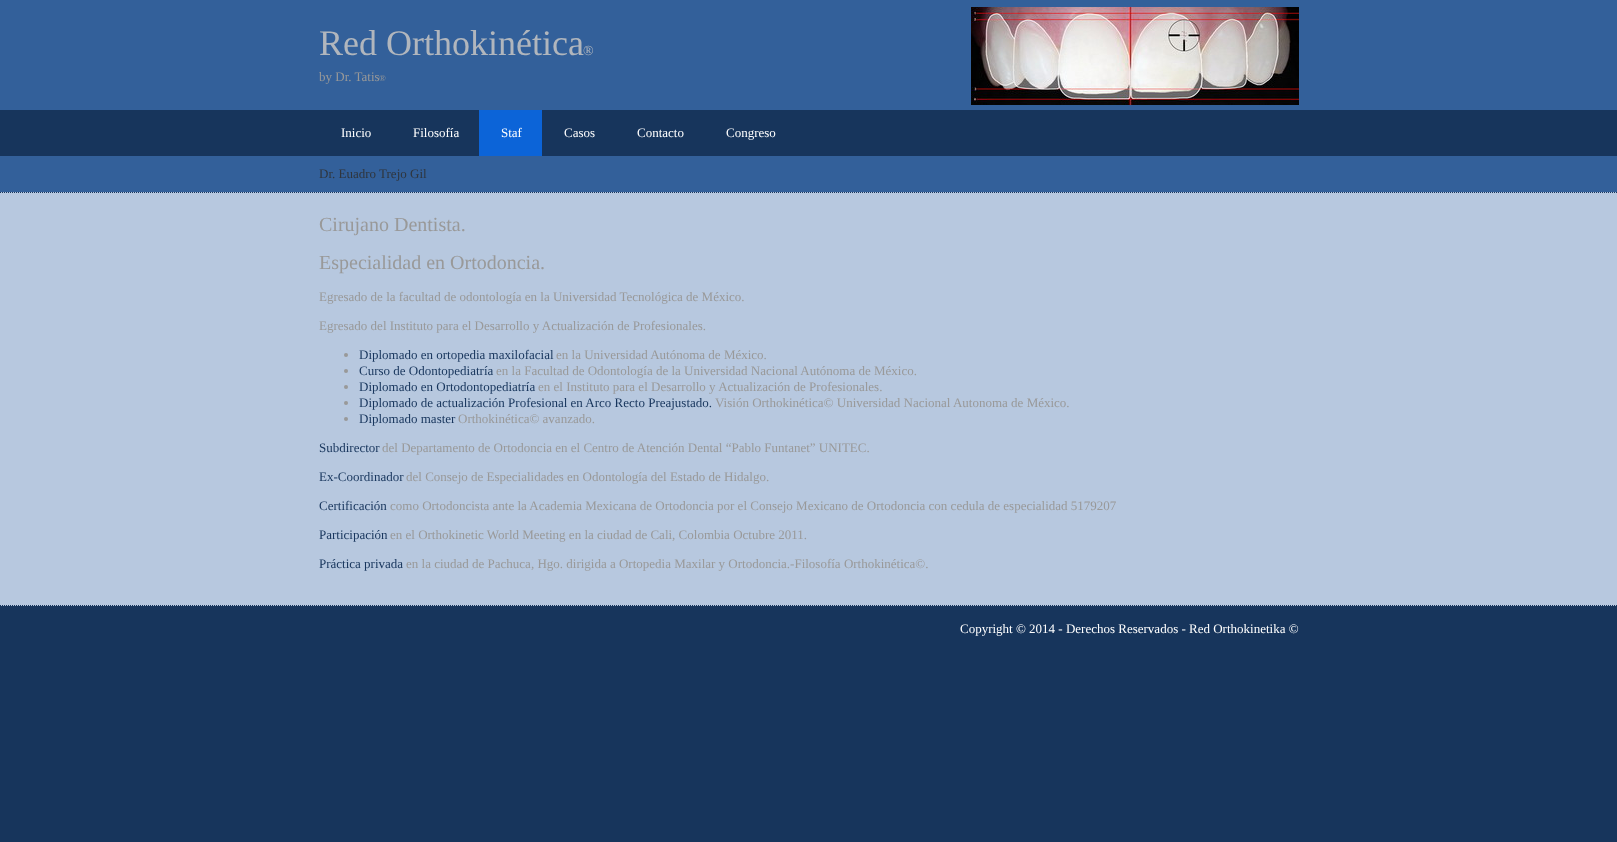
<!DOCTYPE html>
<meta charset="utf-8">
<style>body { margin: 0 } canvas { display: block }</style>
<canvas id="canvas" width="1617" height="842"></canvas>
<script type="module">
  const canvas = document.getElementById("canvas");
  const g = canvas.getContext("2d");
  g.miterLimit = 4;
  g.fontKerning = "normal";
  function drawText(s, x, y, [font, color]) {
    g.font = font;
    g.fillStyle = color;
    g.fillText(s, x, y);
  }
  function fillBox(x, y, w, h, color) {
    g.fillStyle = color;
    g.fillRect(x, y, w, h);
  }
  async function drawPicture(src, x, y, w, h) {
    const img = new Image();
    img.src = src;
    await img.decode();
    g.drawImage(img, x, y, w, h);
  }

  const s1 = ["36px Liberation Serif", "#B1B6BD"];
  const s2 = ["14px Liberation Serif", "#B1B6BD"];
  const s3 = ["13px Liberation Serif", "#999999"];
  const s4 = ["9px Liberation Serif", "#999999"];
  const s5 = ["13px Liberation Serif", "#FFFFFF"];
  const s6 = ["13px Liberation Serif", "#2F353D"];
  const s7 = ["20px Liberation Serif", "#999999"];
  const s8 = ["13px Liberation Serif", "#17355C"];

  fillBox(0, 0, 1617, 842, "#17355C");
  fillBox(0, 0, 1617, 110, "#33609A");
  drawText("Red Orthokinética", 319, 55, s1);
  drawText("®", 583, 55, s2);
  drawText("by Dr. Tatis", 319, 81, s3);
  drawText("®", 379, 81, s4);
  await drawPicture("pic1.png", 971, 7, 328, 98);
  drawText("Inicio", 341, 137, s5);
  drawText("Filosofía", 413, 137, s5);
  fillBox(479, 110, 63, 46, "#0C64D8");
  drawText("Staf", 501, 137, s5);
  drawText("Casos", 564, 137, s5);
  drawText("Contacto", 637, 137, s5);
  drawText("Congreso", 726, 137, s5);
  fillBox(0, 156, 1617, 36, "#33609A");
  drawText("Dr. Euadro Trejo Gil", 319, 178, s6);
  fillBox(0, 192, 1617, 414, "#B7C8DF");
  g.beginPath();
  g.moveTo(0, 192.5);
  g.lineTo(1617, 192.5);
  g.strokeStyle = "#17355C";
  g.setLineDash([1, 1]);
  g.stroke();
  g.beginPath();
  g.moveTo(0, 605.5);
  g.lineTo(1617, 605.5);
  g.stroke();
  drawText("Cirujano Dentista.", 319, 231, s7);
  drawText("Especialidad en Ortodoncia.", 319, 269, s7);
  drawText("Egresado de la facultad de odontología en la Universidad Tecnológica de México.", 319, 301, s3);
  drawText("Egresado del Instituto para el Desarrollo y Actualización de Profesionales.", 319, 330, s3);
  g.beginPath();
  g.arc(346, 355, 2, 0, Math.PI * 2);
  g.fill();
  drawText("Diplomado en ortopedia maxilofacial", 359, 359, s8);
  drawText("en la Universidad Autónoma de México.", 556, 359, s3);
  g.beginPath();
  g.arc(346, 371, 2, 0, Math.PI * 2);
  g.fill();
  drawText("Curso de Odontopediatría", 359, 375, s8);
  drawText("en la Facultad de Odontología de la Universidad Nacional Autónoma de México.", 496, 375, s3);
  g.beginPath();
  g.arc(346, 387, 2, 0, Math.PI * 2);
  g.fill();
  drawText("Diplomado en Ortodontopediatría", 359, 391, s8);
  drawText("en el Instituto para el Desarrollo y Actualización de Profesionales.", 538, 391, s3);
  g.beginPath();
  g.arc(346, 403, 2, 0, Math.PI * 2);
  g.fill();
  drawText("Diplomado de actualización Profesional en Arco Recto Preajustado.", 359, 407, s8);
  drawText("Visión Orthokinética© Universidad Nacional Autonoma de México.", 715, 407, s3);
  g.beginPath();
  g.arc(346, 419, 2, 0, Math.PI * 2);
  g.fill();
  drawText("Diplomado master", 359, 423, s8);
  drawText("Orthokinética© avanzado.", 458, 423, s3);
  drawText("Subdirector", 319, 452, s8);
  drawText("del Departamento de Ortodoncia en el Centro de Atención Dental “Pablo Funtanet” UNITEC.", 382, 452, s3);
  drawText("Ex-Coordinador", 319, 481, s8);
  drawText("del Consejo de Especialidades en Odontología del Estado de Hidalgo.", 406, 481, s3);
  drawText("Certificación", 319, 510, s8);
  drawText("como Ortodoncista ante la Academia Mexicana de Ortodoncia por el Consejo Mexicano de Ortodoncia con cedula de especialidad 5179207", 390, 510, s3);
  drawText("Participación", 319, 539, s8);
  drawText("en el Orthokinetic World Meeting en la ciudad de Cali, Colombia Octubre 2011.", 390, 539, s3);
  drawText("Práctica privada", 319, 568, s8);
  drawText("en la ciudad de Pachuca, Hgo. dirigida a Ortopedia Maxilar y Ortodoncia.-Filosofía Orthokinética©.", 406, 568, s3);
  drawText("Copyright © 2014 - Derechos Reservados - Red Orthokinetika ©", 960, 633, s5);
</script>
